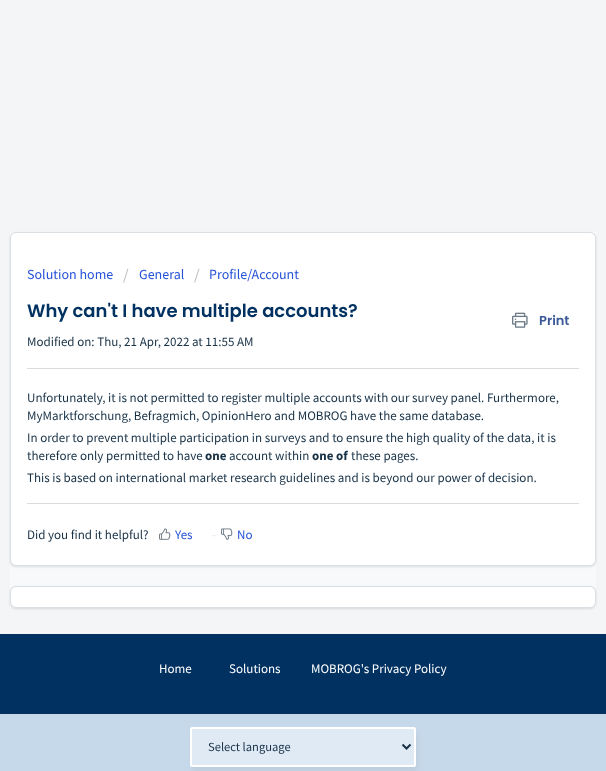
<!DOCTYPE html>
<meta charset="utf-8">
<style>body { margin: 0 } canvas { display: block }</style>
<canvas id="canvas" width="606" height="771"></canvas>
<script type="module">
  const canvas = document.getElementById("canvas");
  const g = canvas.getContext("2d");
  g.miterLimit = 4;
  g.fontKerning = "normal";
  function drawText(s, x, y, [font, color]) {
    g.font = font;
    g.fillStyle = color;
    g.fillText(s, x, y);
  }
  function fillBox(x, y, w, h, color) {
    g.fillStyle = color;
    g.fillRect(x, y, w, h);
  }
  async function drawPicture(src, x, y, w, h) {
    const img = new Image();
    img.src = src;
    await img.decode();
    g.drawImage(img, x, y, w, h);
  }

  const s1 = ["14px Source Sans Pro", "#2753D7"];
  const s2 = ["16px Source Sans Pro", "#BBBBBB"];
  const s3 = ["600 18px Poppins", "#003161"];
  const s4 = ["600 13px Poppins", "#3B5998"];
  const s5 = ["13px Source Sans Pro", "#183247"];
  const s6 = ["bold 13px Source Sans Pro", "#183247"];
  const s7 = ["13px Source Sans Pro", "#2753D7"];
  const s8 = ["13px Source Sans Pro", "#E5E5E5"];
  const s9 = ["13px Source Sans Pro", "#FFFFFF"];
  const s10 = ["12.5px Source Sans Pro", "#183247"];

  fillBox(0, 0, 606, 771, "#F3F5F7");
  fillBox(10, 232, 586, 376, "#F8F9FA");
  g.fillStyle = "rgba(63, 63, 68, 0.15)";
  g.filter = "blur(1px)";
  g.beginPath();
  g.roundRect(10, 233, 586, 334, 6);
  g.fill();
  g.filter = "none";
  g.fillStyle = "#FFFFFF";
  g.beginPath();
  g.roundRect(10.5, 232.5, 585, 333, 5.5);
  g.fill();
  g.strokeStyle = "#DADFE3";
  g.stroke();
  drawText("Solution home", 27, 279, s1);
  drawText("/", 123, 280, s2);
  drawText("General", 139, 279, s1);
  drawText("/", 194, 280, s2);
  drawText("Profile/Account", 209, 279, s1);
  drawText("Why can't I have multiple accounts?", 27, 317, s3);
  await drawPicture("pic1.png", 512, 312, 16, 16);
  drawText("Print", 539, 325, s4);
  drawText("Modified on: Thu, 21 Apr, 2022 at 11:55 AM", 27, 346, s5);
  fillBox(27, 368, 552, 1, "#DCDCDC");
  drawText("Unfortunately, it is not permitted to register multiple accounts with our survey panel. Furthermore,", 27, 402, s5);
  drawText("MyMarktforschung, Befragmich, OpinionHero and MOBROG have the same database.", 27, 420, s5);
  drawText("In order to prevent multiple participation in surveys and to ensure the high quality of the data, it is", 27, 442, s5);
  drawText("therefore only permitted to have", 27, 460, s5);
  drawText("one", 205, 460, s6);
  drawText("account within", 229, 460, s5);
  drawText("one of", 312, 460, s6);
  drawText("these pages.", 351, 460, s5);
  drawText("This is based on international market research guidelines and is beyond our power of decision.", 27, 482, s5);
  fillBox(27, 503, 552, 1, "#DCDCDC");
  drawText("Did you find it helpful?", 27, 539, s5);
  await drawPicture("pic2.png", 159, 528, 12, 12);
  drawText("Yes", 175, 539, s7);
  drawText("-", 212, 539, s8);
  await drawPicture("pic3.png", 221, 528, 12, 12);
  drawText("No", 237, 539, s7);
  g.fillStyle = "rgba(63, 63, 68, 0.15)";
  g.filter = "blur(1px)";
  g.beginPath();
  g.roundRect(10, 587, 586, 22, 6);
  g.fill();
  g.filter = "none";
  g.fillStyle = "#FFFFFF";
  g.beginPath();
  g.roundRect(10.5, 586.5, 585, 21, 5.5);
  g.fill();
  g.stroke();
  fillBox(0, 634, 606, 80, "#003161");
  drawText("Home", 159, 673, s9);
  drawText("Solutions", 229, 673, s9);
  drawText("MOBROG's Privacy Policy", 311, 673, s9);
  fillBox(0, 714, 606, 57, "#C6D9EB");
  g.fillStyle = "rgba(128, 128, 128, 0.12)";
  g.filter = "blur(2.5px)";
  g.beginPath();
  g.roundRect(192, 732, 226, 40, 2);
  g.fill();
  g.filter = "none";
  g.fillStyle = "#E0EAF5";
  g.beginPath();
  g.roundRect(191, 728, 224, 38, 1);
  g.fill();
  g.strokeStyle = "#FFFFFF";
  g.lineWidth = 2;
  g.stroke();
  g.beginPath();
  g.moveTo(402.5, 744.5);
  g.lineTo(406.5, 748.5);
  g.lineTo(410.5, 744.5);
  g.strokeStyle = "#183247";
  g.stroke();
  drawText("Select language", 208, 751, s10);
</script>
